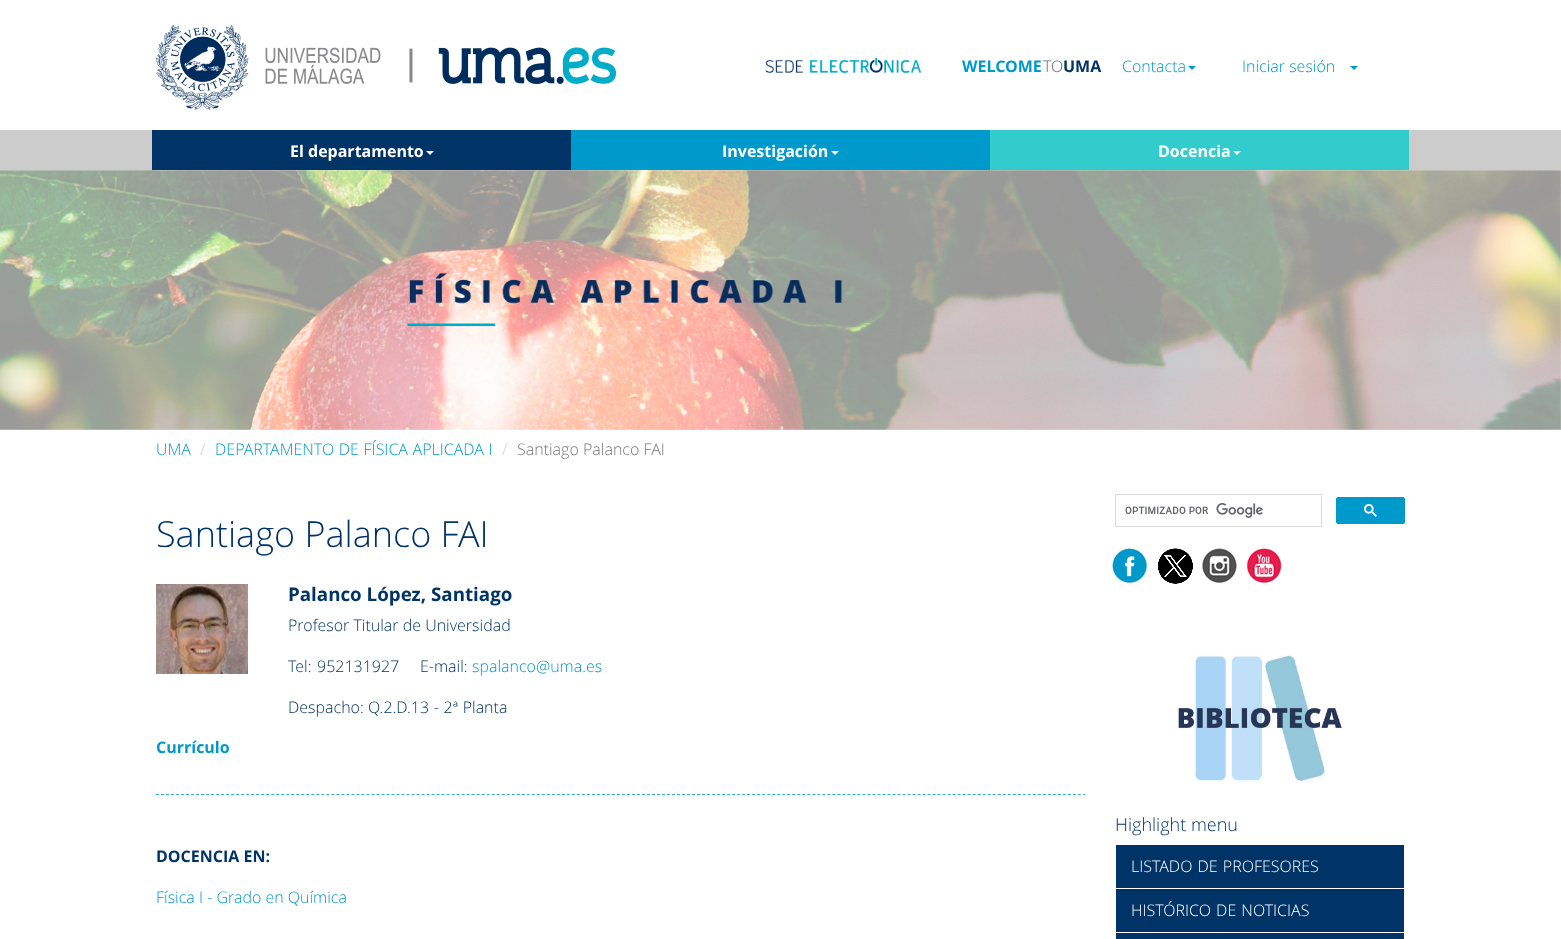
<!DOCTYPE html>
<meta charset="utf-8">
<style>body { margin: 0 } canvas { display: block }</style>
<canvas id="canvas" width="1561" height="939"></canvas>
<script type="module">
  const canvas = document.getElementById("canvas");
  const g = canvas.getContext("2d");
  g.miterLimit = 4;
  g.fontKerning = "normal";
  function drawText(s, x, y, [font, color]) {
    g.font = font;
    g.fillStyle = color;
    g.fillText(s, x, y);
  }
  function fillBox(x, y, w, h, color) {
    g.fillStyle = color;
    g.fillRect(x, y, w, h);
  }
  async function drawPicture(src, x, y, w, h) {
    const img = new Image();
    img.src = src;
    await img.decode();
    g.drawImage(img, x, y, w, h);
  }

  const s1 = ["bold 16px Open Sans", "#0099CC"];
  const s2 = ["300 16px Open Sans", "#666666"];
  const s3 = ["bold 16px Open Sans", "#003366"];
  const s4 = ["300 16px Open Sans", "#0099CC"];
  const s5 = ["bold 16px Open Sans", "#FFFFFF"];
  const s6 = ["300 16px Open Sans", "#CCCCCC"];
  const s7 = ["300 16px Open Sans", "#777777"];
  const s8 = ["300 36px Open Sans", "#003366"];
  const s9 = ["bold 18.75px Open Sans", "#003366"];
  const s10 = ["300 16px Open Sans", "#003366"];
  const s11 = ["300 18px Open Sans", "#003366"];
  const s12 = ["300 16px Open Sans", "#FFFFFF"];

  fillBox(0, 0, 1561, 939, "#FFFFFF");
  await drawPicture("pic1.png", 156, 25, 460, 85);
  await drawPicture("pic2.png", 765, 57, 157, 17);
  drawText("WELCOME", 962, 72, s1);
  drawText("TO", 1043, 72, s2);
  drawText("UMA", 1063, 72, s3);
  drawText("Contacta", 1122, 72, s4);
  g.beginPath();
  g.moveTo(1188, 66);
  g.lineTo(1196, 66);
  g.lineTo(1192, 70);
  g.closePath();
  g.fill();
  drawText("Iniciar sesión", 1242, 72, s4);
  g.beginPath();
  g.moveTo(1350, 66);
  g.lineTo(1358, 66);
  g.lineTo(1354, 70);
  g.closePath();
  g.fill();
  fillBox(0, 130, 1561, 40, "#CCCCCC");
  fillBox(152, 130, 419, 40, "#003466");
  drawText("El departamento", 290, 157, s5);
  g.beginPath();
  g.moveTo(426, 151);
  g.lineTo(434, 151);
  g.lineTo(430, 155);
  g.closePath();
  g.fill();
  fillBox(571, 130, 419, 40, "#0099CB");
  drawText("Investigación", 722, 157, s5);
  g.beginPath();
  g.moveTo(831, 151);
  g.lineTo(839, 151);
  g.lineTo(835, 155);
  g.closePath();
  g.fill();
  fillBox(990, 130, 419, 40, "#33CCCC");
  drawText("Docencia", 1158, 157, s5);
  g.beginPath();
  g.moveTo(1233, 151);
  g.lineTo(1241, 151);
  g.lineTo(1237, 155);
  g.closePath();
  g.fill();
  await drawPicture("pic3.png", 0, 170, 1561, 260);
  drawText("UMA", 156, 455, s4);
  drawText("/", 200, 455, s6);
  g.wordSpacing = "0.5px";
  drawText("DEPARTAMENTO DE FÍSICA APLICADA I", 215, 455, s4);
  g.wordSpacing = "0px";
  drawText("/", 502, 455, s6);
  drawText("Santiago Palanco FAI", 517, 455, s7);
  drawText("Santiago Palanco FAI", 156, 547, s8);
  g.beginPath();
  g.moveTo(156, 794.5);
  g.lineTo(1085, 794.5);
  g.strokeStyle = "#32ADD5";
  g.setLineDash([3, 2.01]);
  g.stroke();
  await drawPicture("pic4.png", 156, 584, 92, 90);
  drawText("Palanco López, Santiago", 288, 601, s9);
  drawText("Profesor Titular de Universidad", 288, 631, s10);
  drawText("Tel:", 288, 672, s10);
  drawText("952131927", 317, 672, s10);
  drawText("E-mail:", 420, 672, s10);
  drawText("spalanco@uma.es", 472, 672, s4);
  drawText("Despacho:", 288, 713, s10);
  g.wordSpacing = "0.5px";
  drawText("Q.2.D.13 - 2ª Planta", 368, 713, s10);
  g.wordSpacing = "0px";
  drawText("Currículo", 156, 753, s1);
  drawText("DOCENCIA EN:", 156, 862, s3);
  drawText("Física I - Grado en Química", 156, 903, s4);
  g.strokeStyle = "#D9D9D9";
  g.setLineDash([]);
  g.strokeRect(1115.5, 494.5, 206, 32);
  await drawPicture("pic5.png", 1125, 503, 138, 15);
  g.beginPath();
  g.roundRect(1336.5, 497.5, 68, 26, 1.5);
  g.fill();
  g.strokeStyle = "#0099CC";
  g.stroke();
  await drawPicture("pic6.png", 1364, 504, 13, 13);
  await drawPicture("pic7.png", 1112, 548, 35, 35);
  await drawPicture("pic8.png", 1154, 547, 39, 38);
  await drawPicture("pic9.png", 1202, 548, 35, 35);
  await drawPicture("pic10.png", 1247, 548, 35, 35);
  await drawPicture("pic11.png", 1175, 654, 167, 130);
  drawText("Highlight menu", 1115, 831, s11);
  fillBox(1116, 845, 288, 43, "#003366");
  g.wordSpacing = "1px";
  drawText("LISTADO DE PROFESORES", 1131, 872, s12);
  fillBox(1116, 889, 288, 43, "#003366");
  drawText("HISTÓRICO DE NOTICIAS", 1131, 916, s12);
  g.fillStyle = "#003366";
  g.beginPath();
  g.rect(1115.5, 932.5, 289, 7);
  g.fill();
  g.strokeStyle = "#FFFFFF";
  g.stroke();
</script>
